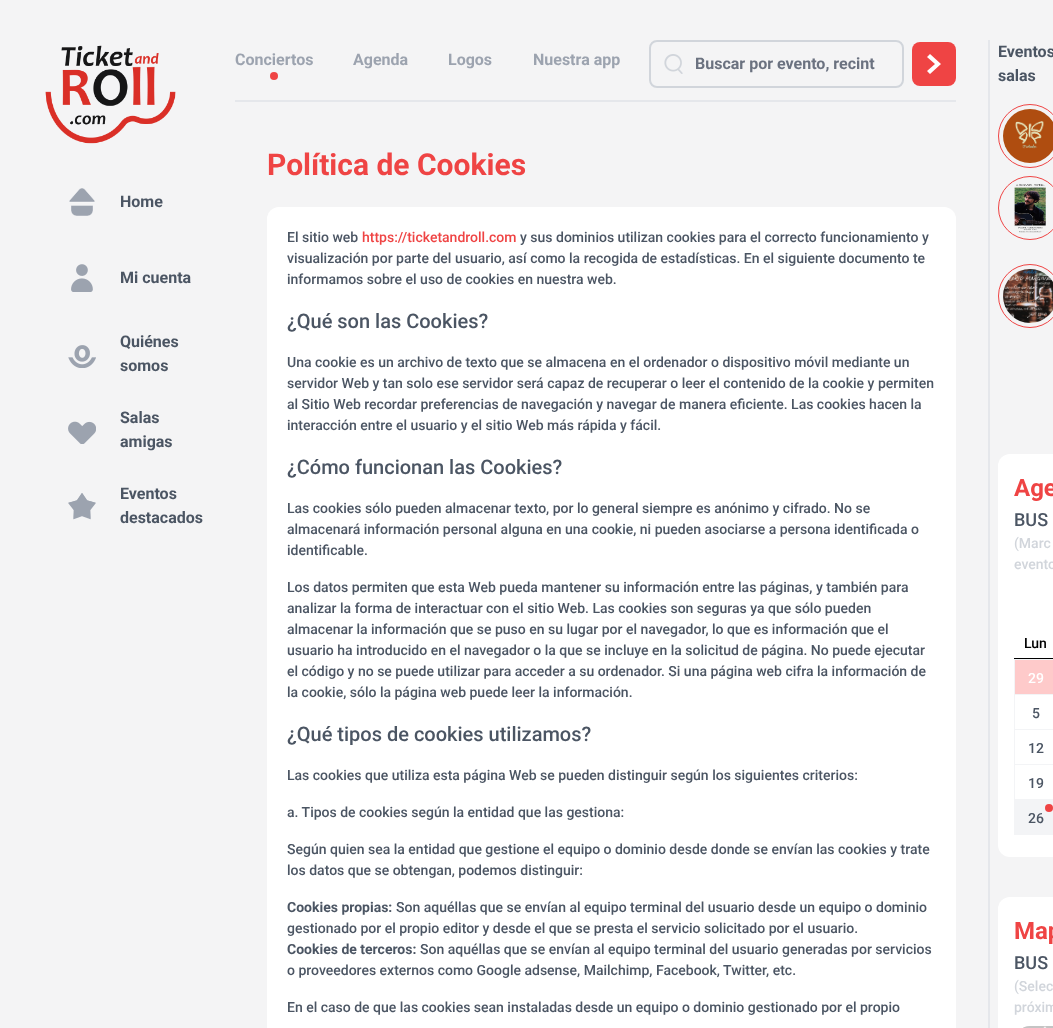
<!DOCTYPE html>
<meta charset="utf-8">
<style>body { margin: 0 } canvas { display: block }</style>
<canvas id="canvas" width="1053" height="1028"></canvas>
<script type="module">
  const canvas = document.getElementById("canvas");
  const g = canvas.getContext("2d");
  g.miterLimit = 4;
  g.fontKerning = "normal";
  function drawText(s, x, y, [font, color]) {
    g.font = font;
    g.fillStyle = color;
    g.fillText(s, x, y);
  }
  function fillBox(x, y, w, h, color) {
    g.fillStyle = color;
    g.fillRect(x, y, w, h);
  }
  function fillRounded(x, y, w, h, r, color) {
    g.fillStyle = color;
    g.beginPath();
    g.roundRect(x, y, w, h, r);
    g.fill();
  }
  async function drawPicture(src, x, y, w, h) {
    const img = new Image();
    img.src = src;
    await img.decode();
    g.drawImage(img, x, y, w, h);
  }

  const s1 = ["bold 16px Roboto", "#4B5563"];
  const s2 = ["bold 16px Roboto", "#9CA3AF"];
  const s3 = ["bold 16px Roboto", "#6B7280"];
  const s4 = ["bold 30px Roboto", "#EF4444"];
  const s5 = ["500 14px Roboto", "#4B5563"];
  const s6 = ["500 14px Roboto", "#EF4444"];
  const s7 = ["500 20px Roboto", "#4B5563"];
  const s8 = ["bold 14px Roboto", "#4B5563"];
  const s9 = ["bold 24px Roboto", "#EF4444"];
  const s10 = ["500 18px Roboto", "#4B5563"];
  const s11 = ["500 14px Roboto", "#D1D5DB"];
  const s12 = ["500 14px Roboto", "#000000"];
  const s13 = ["500 14px Roboto", "#FFFFFF"];

  fillBox(0, 0, 1053, 1028, "#F4F4F5");
  await drawPicture("pic1.png", 45, 45, 131, 99);
  await drawPicture("pic2.png", 69, 188, 26, 28);
  drawText("Home", 120, 207, s1);
  await drawPicture("pic3.png", 71, 264, 22, 28);
  drawText("Mi cuenta", 120, 283, s1);
  await drawPicture("pic4.png", 68, 345, 28, 23);
  drawText("Quiénes", 120, 347, s1);
  drawText("somos", 120, 371, s1);
  await drawPicture("pic5.png", 68, 421, 28, 23);
  drawText("Salas", 120, 423, s1);
  drawText("amigas", 120, 447, s1);
  await drawPicture("pic6.png", 68, 493, 28, 27);
  drawText("Eventos", 120, 499, s1);
  drawText("destacados", 120, 523, s1);
  fillBox(235, 100, 721, 2, "#E5E7EB");
  drawText("Conciertos", 235, 65, s2);
  g.fillStyle = "#EF4444";
  g.beginPath();
  g.arc(274, 76, 4, 0, Math.PI * 2);
  g.fill();
  drawText("Agenda", 353, 65, s2);
  drawText("Logos", 448, 65, s2);
  drawText("Nuestra app", 533, 65, s2);
  g.beginPath();
  g.roundRect(650, 41, 253, 46, 7);
  g.strokeStyle = "#D1D5DB";
  g.lineWidth = 2;
  g.stroke();
  await drawPicture("pic7.png", 664, 54, 19, 20);
  drawText("Buscar por evento, recint", 695, 69, s3);
  fillRounded(912, 42, 44, 44, 8, "#EF4444");
  g.fillStyle = "#FFFFFF";
  g.beginPath();
  g.moveTo(930, 74);
  g.lineTo(927, 71);
  g.lineTo(935, 64);
  g.lineTo(927, 57);
  g.lineTo(930, 54);
  g.lineTo(941, 64);
  g.closePath();
  g.fill();
  drawText("Política de Cookies", 267, 175, s4);
  fillRounded(267, 207, 689, 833, 12, "#FFFFFF");
  drawText("El sitio web", 287, 242, s5);
  drawText("https://ticketandroll.com", 362, 242, s6);
  drawText("y sus dominios utilizan cookies para el correcto funcionamiento y", 520, 242, s5);
  drawText("visualización por parte del usuario, así como la recogida de estadísticas. En el siguiente documento te", 287, 263, s5);
  drawText("informamos sobre el uso de cookies en nuestra web.", 287, 284, s5);
  drawText("¿Qué son las Cookies?", 287, 328, s7);
  drawText("Una cookie es un archivo de texto que se almacena en el ordenador o dispositivo móvil mediante un", 287, 367, s5);
  drawText("servidor Web y tan solo ese servidor será capaz de recuperar o leer el contenido de la cookie y permiten", 287, 388, s5);
  drawText("al Sitio Web recordar preferencias de navegación y navegar de manera eficiente. Las cookies hacen la", 287, 409, s5);
  drawText("interacción entre el usuario y el sitio Web más rápida y fácil.", 287, 430, s5);
  drawText("¿Cómo funcionan las Cookies?", 287, 474, s7);
  drawText("Las cookies sólo pueden almacenar texto, por lo general siempre es anónimo y cifrado. No se", 287, 513, s5);
  drawText("almacenará información personal alguna en una cookie, ni pueden asociarse a persona identificada o", 287, 534, s5);
  drawText("identificable.", 287, 555, s5);
  drawText("Los datos permiten que esta Web pueda mantener su información entre las páginas, y también para", 287, 592, s5);
  drawText("analizar la forma de interactuar con el sitio Web. Las cookies son seguras ya que sólo pueden", 287, 613, s5);
  drawText("almacenar la información que se puso en su lugar por el navegador, lo que es información que el", 287, 634, s5);
  drawText("usuario ha introducido en el navegador o la que se incluye en la solicitud de página. No puede ejecutar", 287, 655, s5);
  drawText("el código y no se puede utilizar para acceder a su ordenador. Si una página web cifra la información de", 287, 676, s5);
  drawText("la cookie, sólo la página web puede leer la información.", 287, 697, s5);
  drawText("¿Qué tipos de cookies utilizamos?", 287, 741, s7);
  drawText("Las cookies que utiliza esta página Web se pueden distinguir según los siguientes criterios:", 287, 780, s5);
  drawText("a. Tipos de cookies según la entidad que las gestiona:", 287, 817, s5);
  drawText("Según quien sea la entidad que gestione el equipo o dominio desde donde se envían las cookies y trate", 287, 854, s5);
  drawText("los datos que se obtengan, podemos distinguir:", 287, 875, s5);
  drawText("Cookies propias:", 287, 912, s8);
  drawText("Son aquéllas que se envían al equipo terminal del usuario desde un equipo o dominio", 396, 912, s5);
  drawText("gestionado por el propio editor y desde el que se presta el servicio solicitado por el usuario.", 287, 933, s5);
  drawText("Cookies de terceros:", 287, 954, s8);
  drawText("Son aquéllas que se envían al equipo terminal del usuario generadas por servicios", 420, 954, s5);
  drawText("o proveedores externos como Google adsense, Mailchimp, Facebook, Twitter, etc.", 287, 975, s5);
  drawText("En el caso de que las cookies sean instaladas desde un equipo o dominio gestionado por el propio", 287, 1012, s5);
  fillBox(988, 40, 2, 988, "#E5E7EB");
  drawText("Eventos", 998, 57, s1);
  drawText("salas", 998, 81, s1);
  g.beginPath();
  g.arc(1030, 136, 31.5, 0, Math.PI * 2);
  g.strokeStyle = "#EF4444";
  g.lineWidth = 1;
  g.stroke();
  await drawPicture("pic8.png", 1003, 109, 50, 54);
  g.beginPath();
  g.arc(1030, 208, 31.5, 0, Math.PI * 2);
  g.stroke();
  await drawPicture("pic9.png", 1014, 184, 32, 49);
  g.beginPath();
  g.arc(1030, 296, 31.5, 0, Math.PI * 2);
  g.stroke();
  await drawPicture("pic10.png", 1003, 269, 50, 54);
  fillRounded(998, 454, 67, 403, 12, "#FFFFFF");
  drawText("Age", 1014, 496, s9);
  drawText("BUS", 1014, 526, s10);
  drawText("(Marc", 1014, 548, s11);
  drawText("evento", 1014, 569, s11);
  fillBox(1014, 658, 39, 1, "#000000");
  drawText("Lun", 1024, 648, s12);
  g.strokeStyle = "#F3F4F6";
  g.strokeRect(1014.5, 659.5, 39, 35);
  fillBox(1015, 660, 38, 34, "#FECACA");
  drawText("29", 1028, 683, s13);
  g.strokeRect(1014.5, 694.5, 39, 35);
  drawText("5", 1032, 718, s5);
  g.strokeRect(1014.5, 729.5, 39, 35);
  drawText("12", 1028, 753, s5);
  g.strokeRect(1014.5, 764.5, 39, 35);
  drawText("19", 1028, 788, s5);
  g.strokeRect(1014.5, 799.5, 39, 35);
  fillBox(1015, 800, 38, 34, "#F3F4F6");
  g.fillStyle = "#EF4444";
  g.beginPath();
  g.arc(1049, 808, 4, 0, Math.PI * 2);
  g.fill();
  drawText("26", 1028, 823, s5);
  fillRounded(998, 897, 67, 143, 12, "#FFFFFF");
  drawText("Map", 1014, 939, s9);
  drawText("BUS", 1014, 969, s10);
  drawText("(Selec", 1014, 991, s11);
  drawText("próxim", 1014, 1012, s11);
  await drawPicture("pic11.png", 1023, 1026, 30, 2);
</script>
